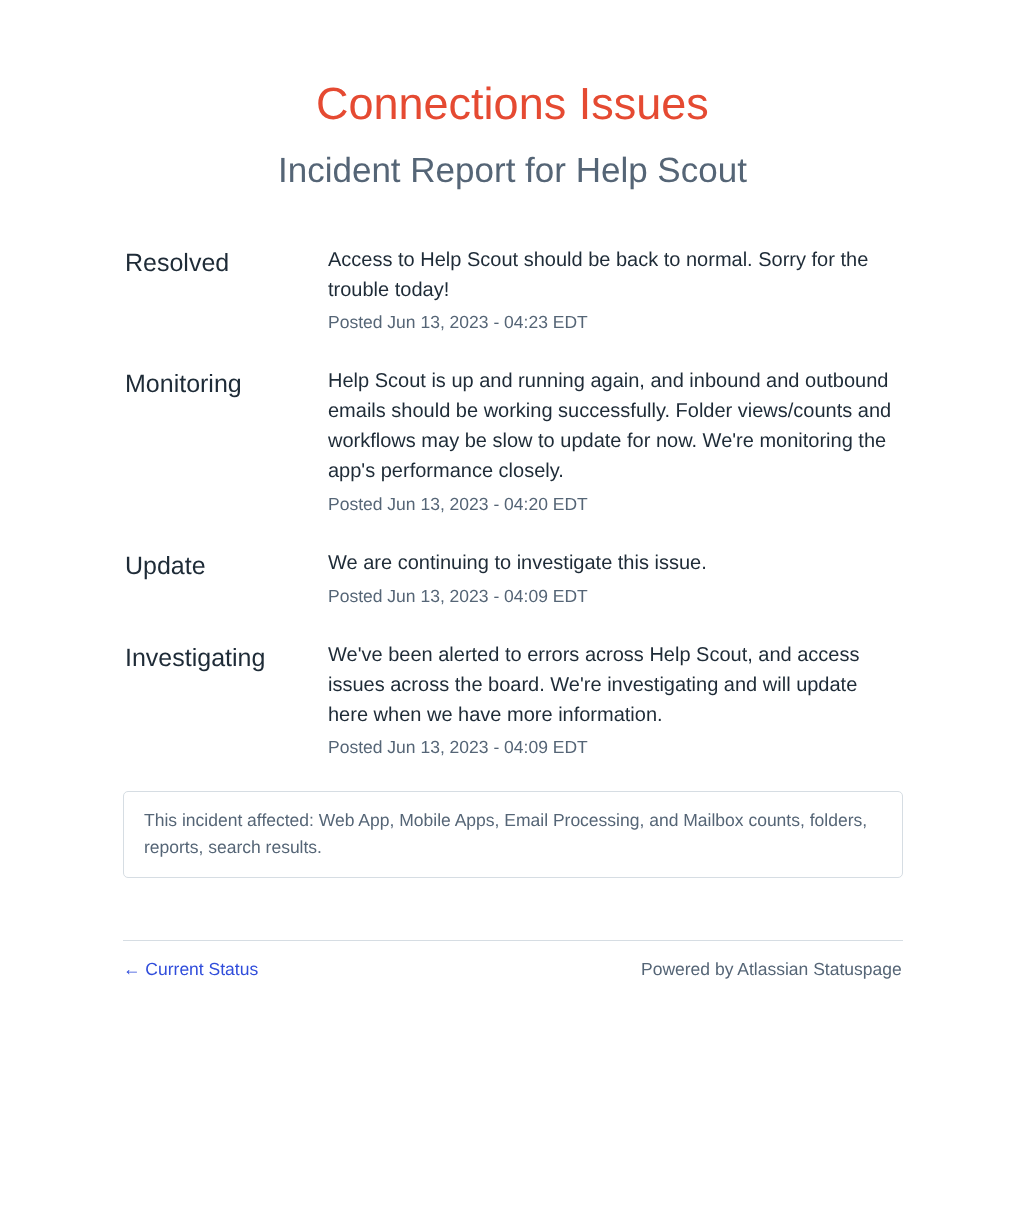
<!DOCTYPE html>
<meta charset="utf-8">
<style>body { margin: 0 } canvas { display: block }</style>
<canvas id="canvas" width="1025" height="1222"></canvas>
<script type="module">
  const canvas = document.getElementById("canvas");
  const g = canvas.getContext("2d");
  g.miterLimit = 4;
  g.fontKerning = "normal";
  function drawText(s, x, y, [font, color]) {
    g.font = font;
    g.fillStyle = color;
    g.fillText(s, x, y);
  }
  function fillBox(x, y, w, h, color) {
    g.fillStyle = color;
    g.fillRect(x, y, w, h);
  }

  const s1 = ["45px Liberation Sans", "#E54A32"];
  const s2 = ["35px Liberation Sans", "#556576"];
  const s3 = ["25px Liberation Sans", "#1E2B37"];
  const s4 = ["20px Liberation Sans", "#1E2B37"];
  const s5 = ["17.5px Liberation Sans", "#556576"];
  const s6 = ["17.5px Liberation Sans", "#304DDB"];

  fillBox(0, 0, 1025, 1222, "#FFFFFF");
  drawText("Connections Issues", 316, 119, s1);
  drawText("Incident Report for Help Scout", 278, 182, s2);
  drawText("Resolved", 125, 271, s3);
  drawText("Access to Help Scout should be back to normal. Sorry for the", 328, 266, s4);
  drawText("trouble today!", 328, 296, s4);
  drawText("Posted Jun 13, 2023 - 04:23 EDT", 328, 328, s5);
  drawText("Monitoring", 125, 392, s3);
  drawText("Help Scout is up and running again, and inbound and outbound", 328, 387, s4);
  drawText("emails should be working successfully. Folder views/counts and", 328, 417, s4);
  drawText("workflows may be slow to update for now. We're monitoring the", 328, 447, s4);
  drawText("app's performance closely.", 328, 477, s4);
  drawText("Posted Jun 13, 2023 - 04:20 EDT", 328, 510, s5);
  drawText("Update", 125, 574, s3);
  drawText("We are continuing to investigate this issue.", 328, 569, s4);
  drawText("Posted Jun 13, 2023 - 04:09 EDT", 328, 602, s5);
  drawText("Investigating", 125, 666, s3);
  drawText("We've been alerted to errors across Help Scout, and access", 328, 661, s4);
  drawText("issues across the board. We're investigating and will update", 328, 691, s4);
  drawText("here when we have more information.", 328, 721, s4);
  drawText("Posted Jun 13, 2023 - 04:09 EDT", 328, 753, s5);
  g.beginPath();
  g.roundRect(123.5, 791.5, 779, 86, 4.5);
  g.strokeStyle = "#D6DDE3";
  g.stroke();
  drawText("This incident affected: Web App, Mobile Apps, Email Processing, and Mailbox counts, folders,", 144, 826, s5);
  drawText("reports, search results.", 144, 853, s5);
  fillBox(123, 940, 780, 1, "#D6DDE3");
  drawText("← Current Status", 123, 975, s6);
  drawText("Powered by Atlassian Statuspage", 641, 975, s5);
</script>
